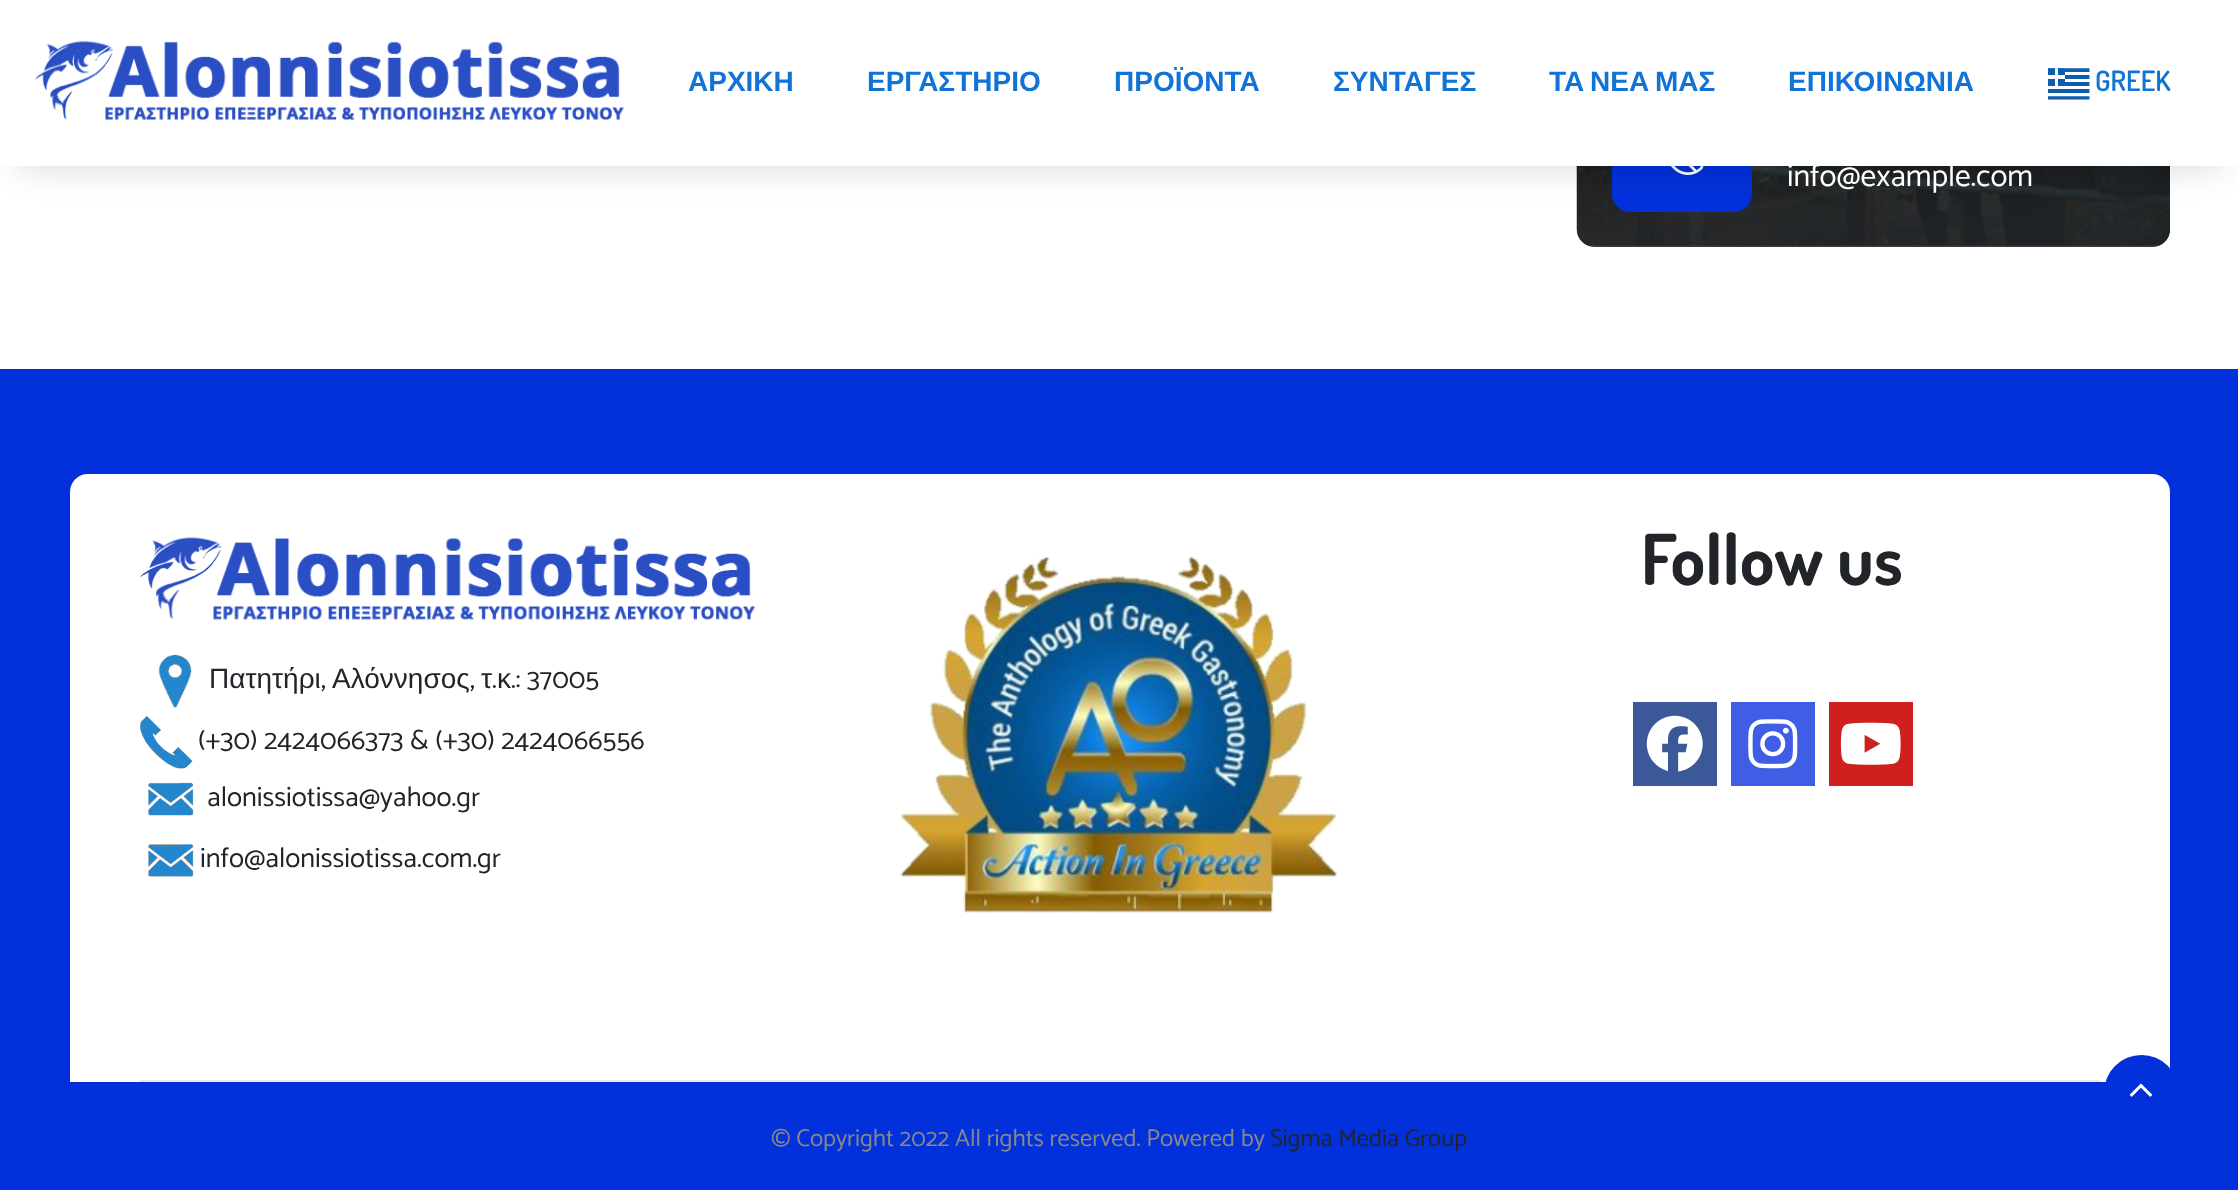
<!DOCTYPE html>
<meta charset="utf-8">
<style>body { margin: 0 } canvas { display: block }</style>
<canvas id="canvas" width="2238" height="1190"></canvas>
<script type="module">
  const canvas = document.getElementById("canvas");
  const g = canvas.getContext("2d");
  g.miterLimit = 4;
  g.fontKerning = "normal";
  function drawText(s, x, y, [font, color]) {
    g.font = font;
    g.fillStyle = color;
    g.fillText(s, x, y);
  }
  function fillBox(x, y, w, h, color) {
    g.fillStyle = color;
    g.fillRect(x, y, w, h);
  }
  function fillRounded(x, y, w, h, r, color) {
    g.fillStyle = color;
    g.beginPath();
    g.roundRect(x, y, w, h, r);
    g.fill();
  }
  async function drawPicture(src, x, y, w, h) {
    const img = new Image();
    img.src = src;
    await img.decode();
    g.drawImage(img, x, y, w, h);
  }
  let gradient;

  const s1 = ["bold 28px Liberation Sans", "#1173D6"];
  const s2 = ["600 28px Dosis", "#1173D6"];
  const s3 = ["31.5px Catamaran", "#FFFFFF"];
  const s4 = ["28px Liberation Sans", "#212529"];
  const s5 = ["28px Catamaran", "#212529"];
  const s6 = ["bold 70px Dosis", "#212529"];
  const s7 = ["24.5px Catamaran", "#888888"];
  const s8 = ["24.5px Catamaran", "#212529"];

  fillBox(0, 0, 2238, 1190, "#FFFFFF");
  fillRounded(1577, -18, 593, 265, 18, "#F7F7F7");
  await drawPicture("pic3.png", 1576, 166, 594, 80);
  gradient = g.createLinearGradient(1873, 247, 1873, -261);
  gradient.addColorStop(0.05, "rgba(33, 37, 41, 0.9)");
  gradient.addColorStop(0.8, "rgba(33, 37, 41, 0)");
  g.fillStyle = gradient;
  g.beginPath();
  g.roundRect(1577, -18, 593, 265, 18);
  g.fill();
  fillRounded(1612, 72, 140, 140, 18, "#0231DB");
  await drawPicture("pic4.png", 1670, 166, 34, 9);
  g.fillStyle = "rgba(0, 0, 0, 0.17)";
  g.filter = "blur(17.5px)";
  g.beginPath();
  g.rect(18, 35, 2203, 131);
  g.fill();
  g.filter = "none";
  fillBox(0, 0, 2238, 166, "#FFFFFF");
  await drawPicture("pic1.png", 35, 40, 589, 81);
  drawText("ΑΡΧΙΚΗ", 688, 91, s1);
  drawText("ΕΡΓΑΣΤΗΡΙΟ", 867, 91, s1);
  drawText("ΠΡΟΪΟΝΤΑ", 1114, 91, s1);
  drawText("ΣΥΝΤΑΓΕΣ", 1333, 91, s1);
  g.wordSpacing = "-2px";
  drawText("ΤΑ ΝΕΑ ΜΑΣ", 1549, 91, s1);
  g.wordSpacing = "0px";
  drawText("ΕΠΙΚΟΙΝΩΝΙΑ", 1788, 91, s1);
  await drawPicture("pic2.png", 2048, 68, 42, 32);
  drawText("GREEK", 2095, 91, s2);
  drawText("info@example.com", 1787, 186, s3);
  fillBox(0, 369, 2238, 821, "#0231DB");
  fillBox(0, 1082, 2238, 2, "#022FD2");
  g.fillStyle = "#FFFFFF";
  g.beginPath();
  g.roundRect(70, 474, 2100, 608, [18, 18, 0, 0]);
  g.fill();
  fillBox(140, 1080, 1960, 2, "#EBEBEB");
  await drawPicture("pic5.png", 140, 537, 615, 83);
  await drawPicture("pic6.png", 158, 654, 34, 54);
  drawText("Πατητήρι", 209, 688, s4);
  drawText(",", 321, 688, s5);
  drawText("Αλόννησος", 332, 688, s4);
  drawText(",", 470, 688, s5);
  drawText("τ", 481, 688, s4);
  drawText(".", 492, 688, s5);
  drawText("κ", 497, 688, s4);
  drawText(".: 37005", 511, 688, s5);
  await drawPicture("pic7.png", 140, 716, 53, 53);
  drawText("(+30) 2424066373 & (+30) 2424066556", 198, 749, s5);
  await drawPicture("pic8.png", 148, 768, 46, 48);
  drawText("alonissiotissa@yahoo.gr", 207, 806, s5);
  await drawPicture("pic9.png", 148, 844, 46, 33);
  drawText("info@alonissiotissa.com.gr", 200, 867, s5);
  await drawPicture("pic10.png", 899, 556, 438, 357);
  drawText("Follow us", 1641, 585, s6);
  fillBox(1633, 702, 84, 84, "#3B5998");
  await drawPicture("pic11.png", 1646, 715, 57, 57);
  fillBox(1731, 702, 84, 84, "#405DE6");
  await drawPicture("pic12.png", 1748, 719, 50, 50);
  fillBox(1829, 702, 84, 84, "#CD201F");
  await drawPicture("pic13.png", 1840, 722, 61, 43);
  drawText("© Copyright 2022 All rights reserved. Powered by", 771, 1146, s7);
  drawText("Sigma Media Group", 1270, 1146, s8);
  fillRounded(2104, 1055, 75, 76, 37.5, "#0231DB");
  await drawPicture("pic14.png", 2129, 1083, 24, 14);
</script>
